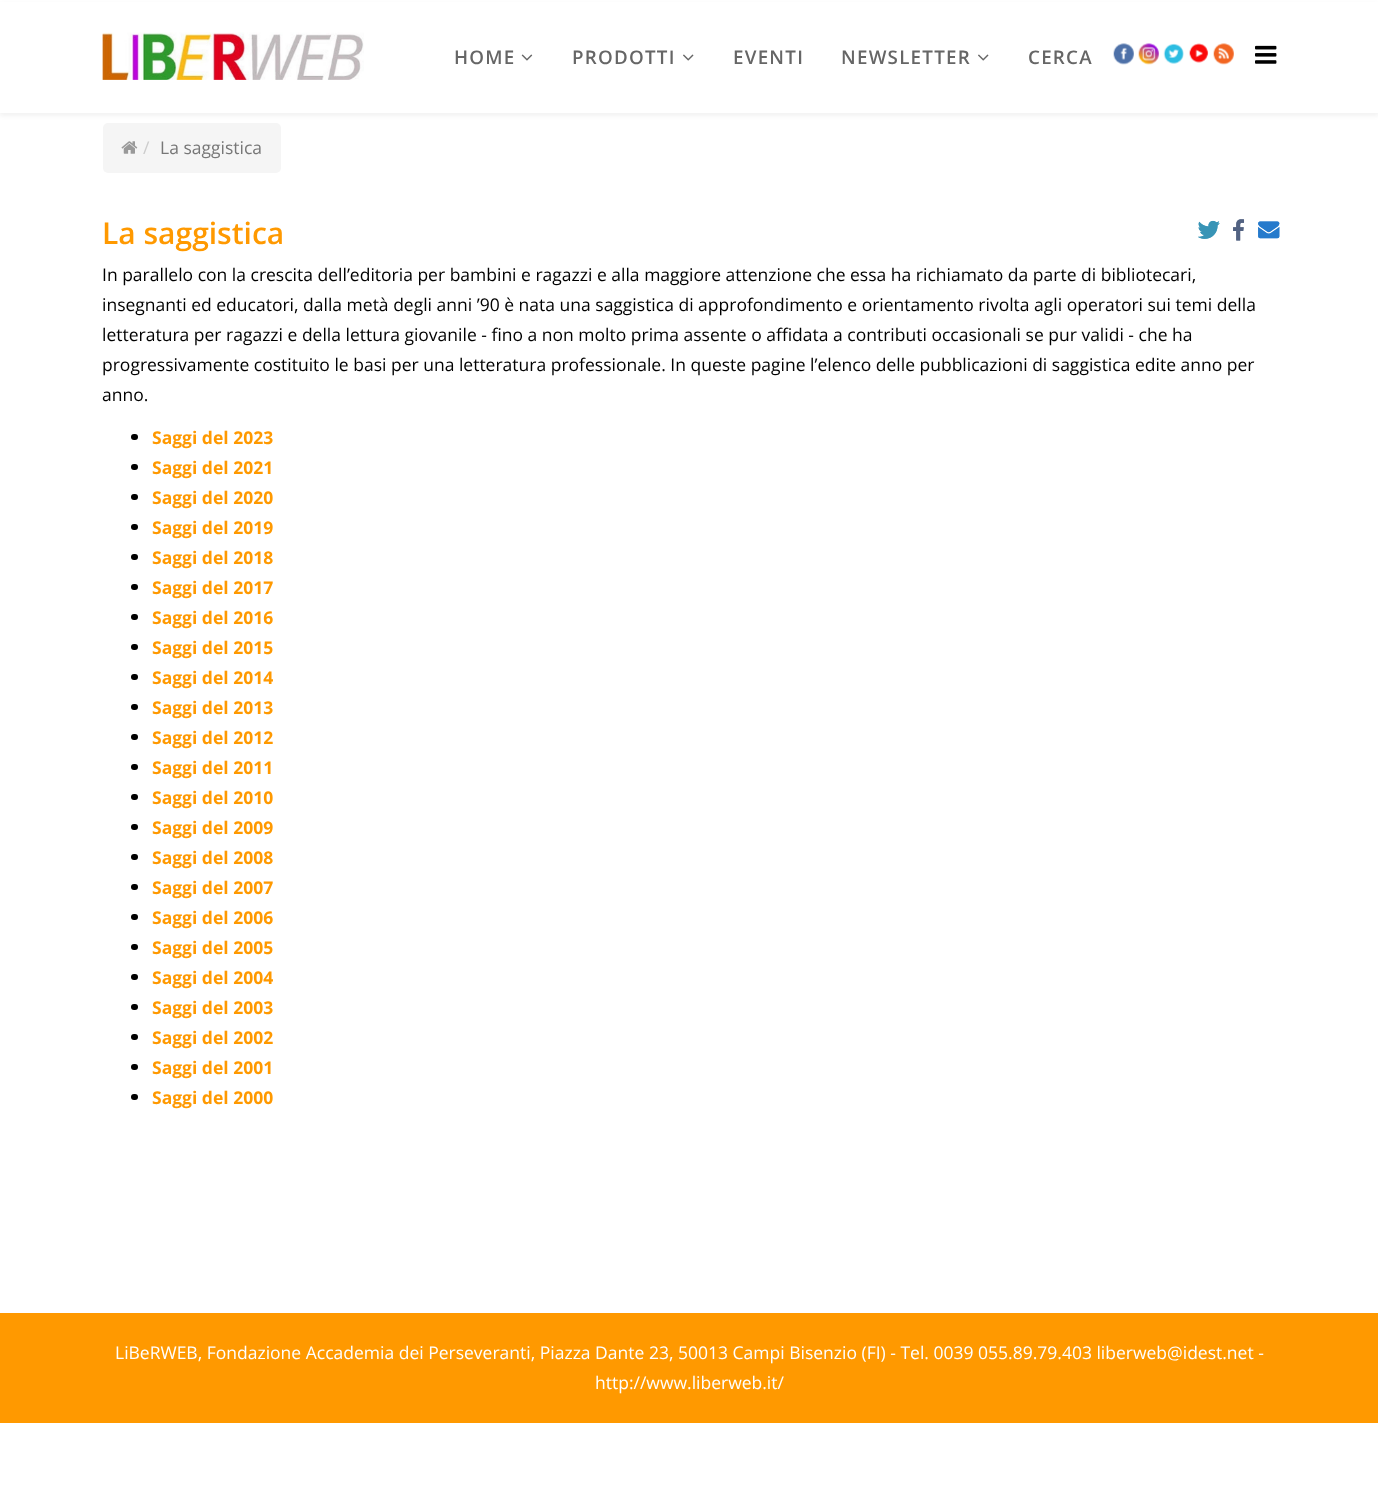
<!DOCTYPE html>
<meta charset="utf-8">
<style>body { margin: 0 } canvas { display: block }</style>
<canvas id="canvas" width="1378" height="1485"></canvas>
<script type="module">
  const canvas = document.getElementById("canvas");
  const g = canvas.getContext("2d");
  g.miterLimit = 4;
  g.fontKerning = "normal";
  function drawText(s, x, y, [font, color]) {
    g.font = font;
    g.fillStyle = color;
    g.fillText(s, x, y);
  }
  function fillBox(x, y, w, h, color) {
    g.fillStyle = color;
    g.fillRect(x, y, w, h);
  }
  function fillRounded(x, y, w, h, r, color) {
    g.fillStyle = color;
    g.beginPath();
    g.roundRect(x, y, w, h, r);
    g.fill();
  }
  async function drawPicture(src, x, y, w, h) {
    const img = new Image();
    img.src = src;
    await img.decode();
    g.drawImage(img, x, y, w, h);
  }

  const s1 = ["600 18.75px Open Sans", "#666666"];
  const s2 = ["17.5px Open Sans", "#CCCCCC"];
  const s3 = ["17.5px Open Sans", "#777777"];
  const s4 = ["600 30px Open Sans", "#FF9900"];
  const s5 = ["17.5px Open Sans", "#000000"];
  const s6 = ["bold 17.5px Open Sans", "#FF9900"];
  const s7 = ["17.5px Open Sans", "#FFFFFF"];

  fillBox(0, 0, 1378, 1485, "#FFFFFF");
  g.fillStyle = "rgba(0, 0, 0, 0.05)";
  g.filter = "blur(2px)";
  g.beginPath();
  g.rect(0, 4, 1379, 112);
  g.fill();
  g.filter = "none";
  fillBox(0, 2, 1378, 111, "#FFFFFF");
  await drawPicture("pic1.png", 102, 32, 262, 48);
  g.letterSpacing = "1.25px";
  drawText("HOME", 454, 64, s1);
  await drawPicture("pic2.png", 521, 54, 12, 7);
  drawText("PRODOTTI", 572, 64, s1);
  await drawPicture("pic3.png", 683, 54, 11, 7);
  drawText("EVENTI", 733, 64, s1);
  drawText("NEWSLETTER", 841, 64, s1);
  await drawPicture("pic3.png", 978, 54, 11, 7);
  drawText("CERCA", 1028, 64, s1);
  await drawPicture("pic4.png", 1113, 43, 21, 22);
  await drawPicture("pic5.png", 1138, 43, 21, 22);
  await drawPicture("pic6.png", 1163, 43, 21, 21);
  await drawPicture("pic7.png", 1189, 43, 20, 20);
  await drawPicture("pic8.png", 1213, 43, 21, 22);
  await drawPicture("pic9.png", 1255, 45, 22, 19);
  fillRounded(103, 123, 178, 50, 5, "#F5F5F5");
  await drawPicture("pic10.png", 121, 141, 17, 13);
  g.letterSpacing = "0px";
  drawText("/", 143, 154, s2);
  drawText("La saggistica", 160, 154, s3);
  await drawPicture("pic11.png", 1198, 220, 22, 19);
  await drawPicture("pic12.png", 1233, 219, 12, 22);
  await drawPicture("pic13.png", 1258, 221, 22, 18);
  drawText("La saggistica", 102, 244, s4);
  fillBox(1198, 221, 21, 18, "rgba(255, 255, 255, 0.05)");
  await drawPicture("pic14.png", 1198, 220, 22, 19);
  await drawPicture("pic15.png", 1233, 219, 11, 22);
  fillBox(1258, 221, 22, 17, "rgba(255, 255, 255, 0.05)");
  await drawPicture("pic16.png", 1258, 221, 22, 18);
  drawText("In parallelo con la crescita dell’editoria per bambini e ragazzi e alla maggiore attenzione che essa ha richiamato da parte di bibliotecari,", 102, 281, s5);
  drawText("insegnanti ed educatori, dalla metà degli anni ’90 è nata una saggistica di approfondimento e orientamento rivolta agli operatori sui temi della", 102, 311, s5);
  drawText("letteratura per ragazzi e della lettura giovanile - fino a non molto prima assente o affidata a contributi occasionali se pur validi - che ha", 102, 341, s5);
  drawText("progressivamente costituito le basi per una letteratura professionale. In queste pagine l’elenco delle pubblicazioni di saggistica edite anno per", 102, 371, s5);
  drawText("anno.", 102, 401, s5);
  fillRounded(131, 434, 7, 6, 3, "#000000");
  drawText("Saggi del 2023", 152, 444, s6);
  fillRounded(131, 464, 7, 6, 3, "#000000");
  drawText("Saggi del 2021", 152, 474, s6);
  fillRounded(131, 494, 7, 6, 3, "#000000");
  drawText("Saggi del 2020", 152, 504, s6);
  fillRounded(131, 524, 7, 6, 3, "#000000");
  drawText("Saggi del 2019", 152, 534, s6);
  fillRounded(131, 554, 7, 6, 3, "#000000");
  drawText("Saggi del 2018", 152, 564, s6);
  fillRounded(131, 584, 7, 6, 3, "#000000");
  drawText("Saggi del 2017", 152, 594, s6);
  fillRounded(131, 614, 7, 6, 3, "#000000");
  drawText("Saggi del 2016", 152, 624, s6);
  fillRounded(131, 644, 7, 6, 3, "#000000");
  drawText("Saggi del 2015", 152, 654, s6);
  fillRounded(131, 674, 7, 6, 3, "#000000");
  drawText("Saggi del 2014", 152, 684, s6);
  fillRounded(131, 704, 7, 6, 3, "#000000");
  drawText("Saggi del 2013", 152, 714, s6);
  fillRounded(131, 734, 7, 6, 3, "#000000");
  drawText("Saggi del 2012", 152, 744, s6);
  fillRounded(131, 764, 7, 6, 3, "#000000");
  drawText("Saggi del 2011", 152, 774, s6);
  fillRounded(131, 794, 7, 6, 3, "#000000");
  drawText("Saggi del 2010", 152, 804, s6);
  fillRounded(131, 824, 7, 6, 3, "#000000");
  drawText("Saggi del 2009", 152, 834, s6);
  fillRounded(131, 854, 7, 6, 3, "#000000");
  drawText("Saggi del 2008", 152, 864, s6);
  fillRounded(131, 884, 7, 6, 3, "#000000");
  drawText("Saggi del 2007", 152, 894, s6);
  fillRounded(131, 914, 7, 6, 3, "#000000");
  drawText("Saggi del 2006", 152, 924, s6);
  fillRounded(131, 944, 7, 6, 3, "#000000");
  drawText("Saggi del 2005", 152, 954, s6);
  fillRounded(131, 974, 7, 6, 3, "#000000");
  drawText("Saggi del 2004", 152, 984, s6);
  fillRounded(131, 1004, 7, 6, 3, "#000000");
  drawText("Saggi del 2003", 152, 1014, s6);
  fillRounded(131, 1034, 7, 6, 3, "#000000");
  drawText("Saggi del 2002", 152, 1044, s6);
  fillRounded(131, 1064, 7, 6, 3, "#000000");
  drawText("Saggi del 2001", 152, 1074, s6);
  fillRounded(131, 1094, 7, 6, 3, "#000000");
  drawText("Saggi del 2000", 152, 1104, s6);
  fillBox(0, 1313, 1378, 110, "#FF9900");
  drawText("LiBeRWEB, Fondazione Accademia dei Perseveranti, Piazza Dante 23, 50013 Campi Bisenzio (FI) - Tel. 0039 055.89.79.403 liberweb@idest.net -", 115, 1359, s7);
  drawText("http://www.liberweb.it/", 595, 1389, s7);
</script>
